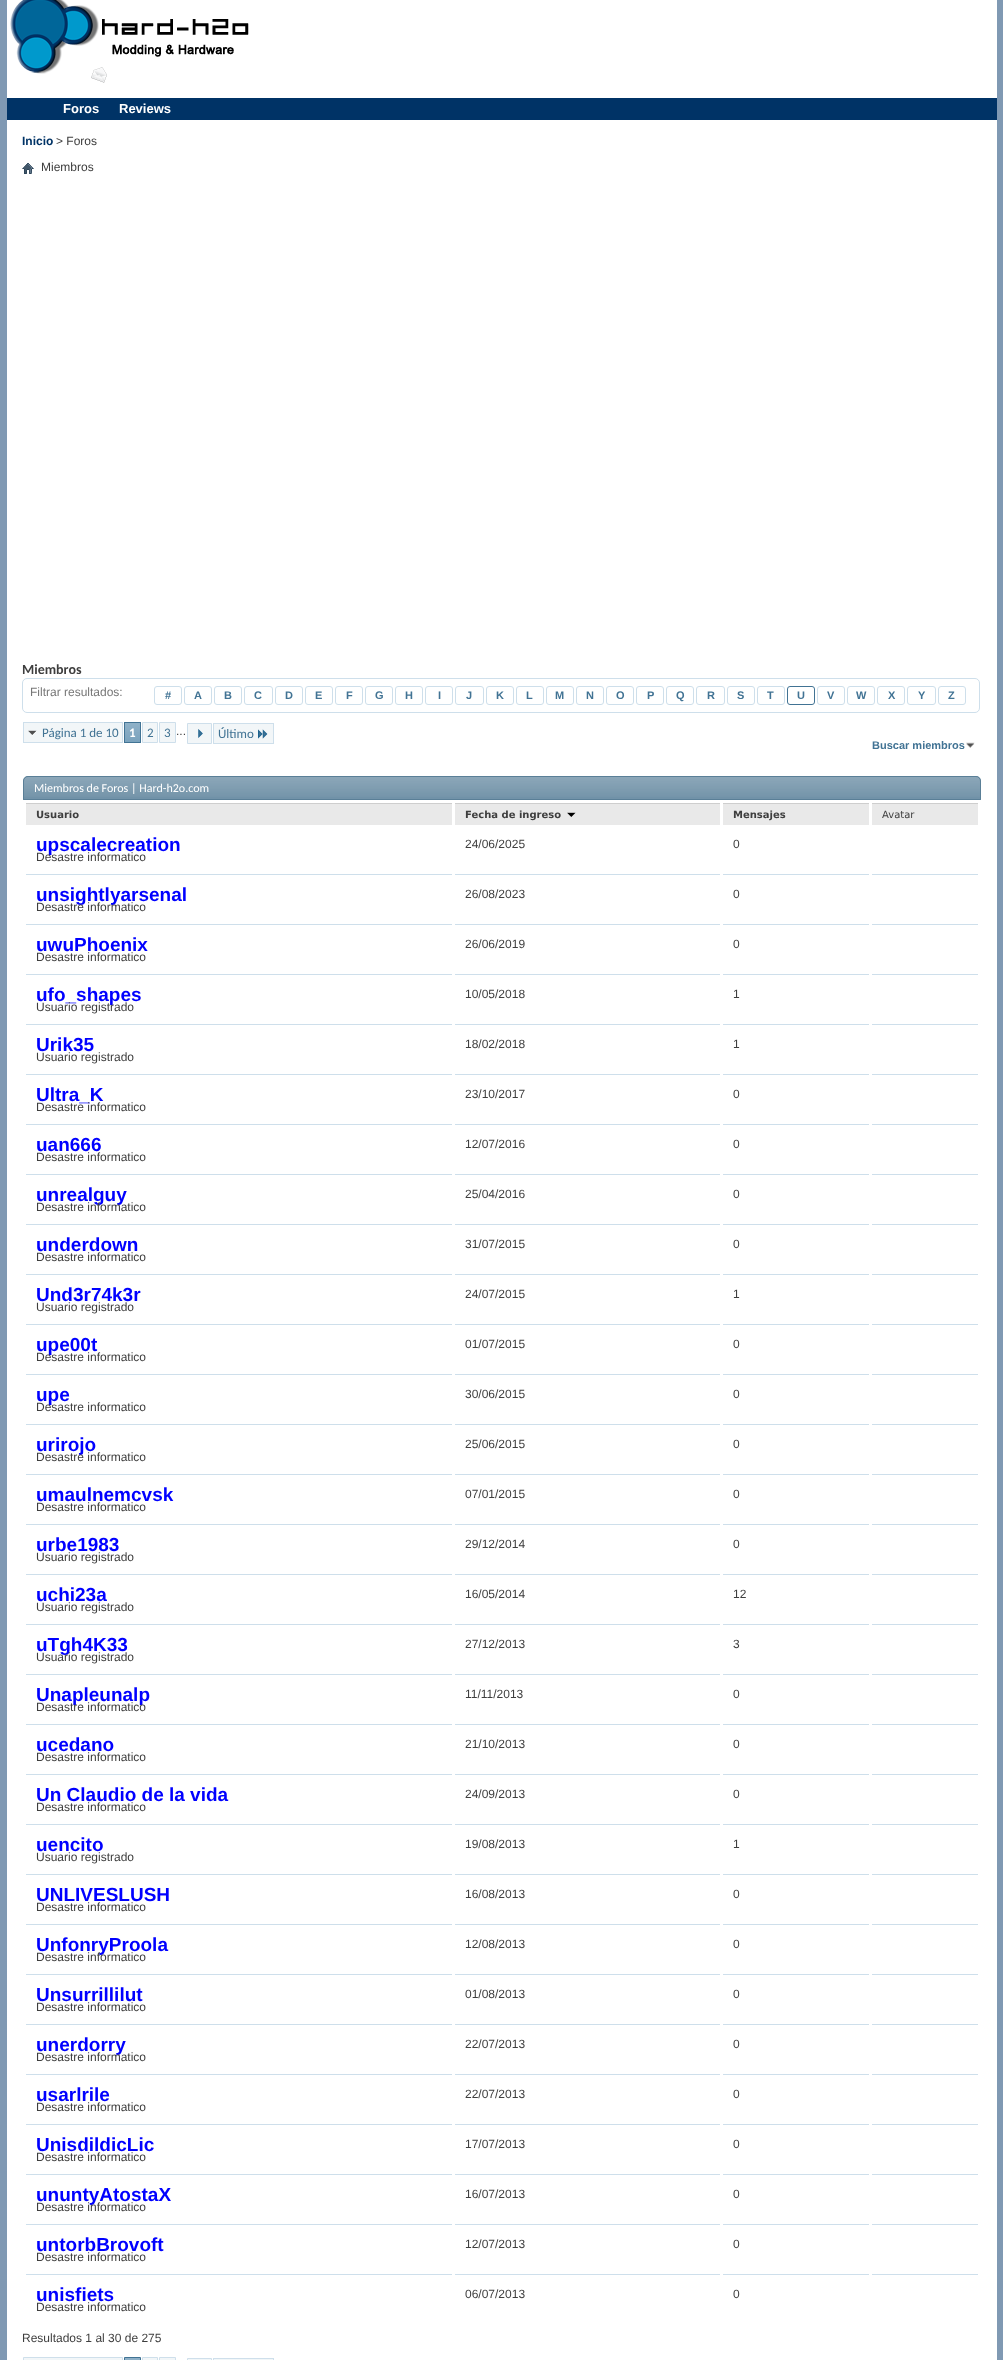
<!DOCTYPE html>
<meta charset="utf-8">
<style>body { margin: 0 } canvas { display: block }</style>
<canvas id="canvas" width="1003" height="2360"></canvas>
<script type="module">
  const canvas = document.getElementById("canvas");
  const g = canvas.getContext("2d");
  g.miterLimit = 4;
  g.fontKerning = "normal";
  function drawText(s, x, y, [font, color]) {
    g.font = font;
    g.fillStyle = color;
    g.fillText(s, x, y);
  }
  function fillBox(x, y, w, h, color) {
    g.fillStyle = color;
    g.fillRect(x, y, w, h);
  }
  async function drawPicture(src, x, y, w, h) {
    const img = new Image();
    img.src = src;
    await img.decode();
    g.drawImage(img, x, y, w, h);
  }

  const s1 = ["bold 13px Liberation Sans", "#FFFFFF"];
  const s2 = ["bold 12px Liberation Sans", "#003366"];
  const s3 = ["12px Liberation Sans", "#3E3E3E"];
  const s4 = ["bold 14px Carlito", "#3E3E3E"];
  const s5 = ["12px Liberation Sans", "#777777"];
  const s6 = ["bold 11px Liberation Sans", "#417394"];
  const s7 = ["13px Carlito", "#417394"];
  const s8 = ["bold 13px Carlito", "#FFFFFF"];
  const s9 = ["12px Carlito", "#FFFFFF"];
  const s10 = ["bold 10px DejaVu Sans", "#3E3E3E"];
  const s11 = ["10px DejaVu Sans", "#3E3E3E"];
  const s12 = ["bold 19px Liberation Sans", "#0000FF"];

  fillBox(0, 0, 1003, 2360, "#8099B3");
  fillBox(7, 0, 990, 2360, "#FFFFFF");
  await drawPicture("pic1.png", 10, 0, 239, 74);
  await drawPicture("pic2.png", 91, 67, 16, 16);
  fillBox(7, 98, 990, 22, "#003366");
  drawText("Foros", 63, 113, s1);
  drawText("Reviews", 119, 113, s1);
  drawText("Inicio", 22, 145, s2);
  drawText("> Foros", 56, 145, s3);
  await drawPicture("pic3.png", 22, 163, 12, 11);
  drawText("Miembros", 41, 171, s3);
  drawText("Miembros", 22, 674, s4);
  g.beginPath();
  g.roundRect(22.5, 678.5, 957, 34, 4.5);
  g.strokeStyle = "#CEDFEB";
  g.stroke();
  drawText("Filtrar resultados:", 30, 696, s5);
  g.beginPath();
  g.roundRect(154.5, 686.5, 27, 18, 2.5);
  g.stroke();
  drawText("#", 165, 699, s6);
  g.beginPath();
  g.roundRect(184.5, 686.5, 27, 18, 2.5);
  g.stroke();
  drawText("A", 194, 699, s6);
  g.beginPath();
  g.roundRect(214.5, 686.5, 27, 18, 2.5);
  g.stroke();
  drawText("B", 224, 699, s6);
  g.beginPath();
  g.roundRect(244.5, 686.5, 28, 18, 2.5);
  g.stroke();
  drawText("C", 254, 699, s6);
  g.beginPath();
  g.roundRect(275.5, 686.5, 27, 18, 2.5);
  g.stroke();
  drawText("D", 285, 699, s6);
  g.beginPath();
  g.roundRect(305.5, 686.5, 27, 18, 2.5);
  g.stroke();
  drawText("E", 315, 699, s6);
  g.beginPath();
  g.roundRect(335.5, 686.5, 27, 18, 2.5);
  g.stroke();
  drawText("F", 346, 699, s6);
  g.beginPath();
  g.roundRect(365.5, 686.5, 27, 18, 2.5);
  g.stroke();
  drawText("G", 375, 699, s6);
  g.beginPath();
  g.roundRect(395.5, 686.5, 27, 18, 2.5);
  g.stroke();
  drawText("H", 405, 699, s6);
  g.beginPath();
  g.roundRect(425.5, 686.5, 27, 18, 2.5);
  g.stroke();
  drawText("I", 438, 699, s6);
  g.beginPath();
  g.roundRect(455.5, 686.5, 28, 18, 2.5);
  g.stroke();
  drawText("J", 466, 699, s6);
  g.beginPath();
  g.roundRect(486.5, 686.5, 27, 18, 2.5);
  g.stroke();
  drawText("K", 496, 699, s6);
  g.beginPath();
  g.roundRect(516.5, 686.5, 27, 18, 2.5);
  g.stroke();
  drawText("L", 526, 699, s6);
  g.beginPath();
  g.roundRect(546.5, 686.5, 27, 18, 2.5);
  g.stroke();
  drawText("M", 555, 699, s6);
  g.beginPath();
  g.roundRect(576.5, 686.5, 27, 18, 2.5);
  g.stroke();
  drawText("N", 586, 699, s6);
  g.beginPath();
  g.roundRect(606.5, 686.5, 27, 18, 2.5);
  g.stroke();
  drawText("O", 616, 699, s6);
  g.beginPath();
  g.roundRect(636.5, 686.5, 27, 18, 2.5);
  g.stroke();
  drawText("P", 647, 699, s6);
  g.beginPath();
  g.roundRect(666.5, 686.5, 27, 18, 2.5);
  g.stroke();
  drawText("Q", 676, 699, s6);
  g.beginPath();
  g.roundRect(696.5, 686.5, 28, 18, 2.5);
  g.stroke();
  drawText("R", 707, 699, s6);
  g.beginPath();
  g.roundRect(727.5, 686.5, 27, 18, 2.5);
  g.stroke();
  drawText("S", 737, 699, s6);
  g.beginPath();
  g.roundRect(757.5, 686.5, 27, 18, 2.5);
  g.stroke();
  drawText("T", 767, 699, s6);
  g.beginPath();
  g.roundRect(787.5, 686.5, 27, 18, 2.5);
  g.strokeStyle = "#417394";
  g.stroke();
  drawText("U", 797, 699, s6);
  g.beginPath();
  g.roundRect(817.5, 686.5, 27, 18, 2.5);
  g.strokeStyle = "#CEDFEB";
  g.stroke();
  drawText("V", 827, 699, s6);
  g.beginPath();
  g.roundRect(847.5, 686.5, 27, 18, 2.5);
  g.stroke();
  drawText("W", 856, 699, s6);
  g.beginPath();
  g.roundRect(877.5, 686.5, 27, 18, 2.5);
  g.stroke();
  drawText("X", 888, 699, s6);
  g.beginPath();
  g.roundRect(907.5, 686.5, 28, 18, 2.5);
  g.stroke();
  drawText("Y", 918, 699, s6);
  g.beginPath();
  g.roundRect(938.5, 686.5, 27, 18, 2.5);
  g.stroke();
  drawText("Z", 948, 699, s6);
  fillBox(24, 723, 98, 19, "#F2F6F8");
  await drawPicture("pic4.png", 28, 730, 9, 6);
  g.strokeRect(23.5, 722.5, 99, 20);
  drawText("Página 1 de 10", 42, 737, s7);
  fillBox(125, 723, 15, 19, "#759FBB");
  await drawPicture("pic5.png", 125, 723, 15, 19);
  g.strokeStyle = "#417394";
  g.strokeRect(124.5, 722.5, 16, 20);
  drawText("1", 129, 737, s8);
  g.fillStyle = "#F2F6F8";
  g.beginPath();
  g.rect(142.5, 722.5, 15, 20);
  g.fill();
  g.strokeStyle = "#CEDFEB";
  g.stroke();
  drawText("2", 147, 737, s7);
  g.fillStyle = "#F2F6F8";
  g.beginPath();
  g.rect(159.5, 722.5, 16, 20);
  g.fill();
  g.stroke();
  drawText("3", 164, 737, s7);
  drawText("...", 176, 735, s3);
  g.fillStyle = "#F2F6F8";
  g.beginPath();
  g.rect(187.5, 723.5, 24, 20);
  g.fill();
  g.stroke();
  await drawPicture("pic6.png", 198, 729, 5, 9);
  fillBox(214, 724, 59, 19, "#F2F6F8");
  drawText("Último", 218, 738, s7);
  fillBox(213, 723, 61, 1, "#CEDFEB");
  fillBox(213, 743, 41, 1, "#CEDFEB");
  fillBox(213, 723, 1, 21, "#CEDFEB");
  fillBox(273, 723, 1, 21, "#CEDFEB");
  fillBox(254, 743, 20, 1, "#CEDFEB");
  await drawPicture("pic7.png", 258, 729, 10, 10);
  drawText("Buscar miembros", 872, 749, s6);
  await drawPicture("pic8.png", 966, 742, 9, 6);
  g.fillStyle = "#7192A8";
  g.beginPath();
  g.roundRect(23, 776, 958, 24, [5, 5, 0, 0]);
  g.fill();
  await drawPicture("pic9.png", 23, 777, 958, 20);
  g.beginPath();
  g.roundRect(23.5, 776.5, 957, 23, [4.5, 4.5, 0, 0]);
  g.strokeStyle = "#5A7F97";
  g.stroke();
  drawText("Miembros de Foros | Hard-h2o.com", 34, 792, s9);
  fillBox(26, 804, 426, 21, "#E9E9E9");
  fillBox(26, 803, 426, 1, "#CECECE");
  drawText("Usuario", 36, 818, s10);
  fillBox(455, 804, 265, 21, "#E9E9E9");
  fillBox(455, 803, 265, 1, "#CECECE");
  drawText("Fecha de ingreso", 465, 818, s10);
  await drawPicture("pic10.png", 567, 812, 9, 5);
  fillBox(723, 804, 146, 21, "#E9E9E9");
  fillBox(723, 803, 146, 1, "#CECECE");
  drawText("Mensajes", 733, 818, s10);
  fillBox(872, 804, 106, 21, "#E9E9E9");
  fillBox(872, 803, 106, 1, "#CECECE");
  drawText("Avatar", 882, 818, s11);
  fillBox(26, 874, 426, 1, "#CEDFEB");
  drawText("upscalecreation", 36, 851, s12);
  drawText("Desastre informatico", 36, 861, s3);
  fillBox(455, 874, 265, 1, "#CEDFEB");
  drawText("24/06/2025", 465, 848, s3);
  fillBox(723, 874, 146, 1, "#CEDFEB");
  drawText("0", 733, 848, s3);
  fillBox(872, 874, 106, 1, "#CEDFEB");
  fillBox(26, 924, 426, 1, "#CEDFEB");
  drawText("unsightlyarsenal", 36, 901, s12);
  drawText("Desastre informatico", 36, 911, s3);
  fillBox(455, 924, 265, 1, "#CEDFEB");
  drawText("26/08/2023", 465, 898, s3);
  fillBox(723, 924, 146, 1, "#CEDFEB");
  drawText("0", 733, 898, s3);
  fillBox(872, 924, 106, 1, "#CEDFEB");
  fillBox(26, 974, 426, 1, "#CEDFEB");
  drawText("uwuPhoenix", 36, 951, s12);
  drawText("Desastre informatico", 36, 961, s3);
  fillBox(455, 974, 265, 1, "#CEDFEB");
  drawText("26/06/2019", 465, 948, s3);
  fillBox(723, 974, 146, 1, "#CEDFEB");
  drawText("0", 733, 948, s3);
  fillBox(872, 974, 106, 1, "#CEDFEB");
  fillBox(26, 1024, 426, 1, "#CEDFEB");
  drawText("ufo_shapes", 36, 1001, s12);
  drawText("Usuario registrado", 36, 1011, s3);
  fillBox(455, 1024, 265, 1, "#CEDFEB");
  drawText("10/05/2018", 465, 998, s3);
  fillBox(723, 1024, 146, 1, "#CEDFEB");
  drawText("1", 733, 998, s3);
  fillBox(872, 1024, 106, 1, "#CEDFEB");
  fillBox(26, 1074, 426, 1, "#CEDFEB");
  drawText("Urik35", 36, 1051, s12);
  drawText("Usuario registrado", 36, 1061, s3);
  fillBox(455, 1074, 265, 1, "#CEDFEB");
  drawText("18/02/2018", 465, 1048, s3);
  fillBox(723, 1074, 146, 1, "#CEDFEB");
  drawText("1", 733, 1048, s3);
  fillBox(872, 1074, 106, 1, "#CEDFEB");
  fillBox(26, 1124, 426, 1, "#CEDFEB");
  drawText("Ultra_K", 36, 1101, s12);
  drawText("Desastre informatico", 36, 1111, s3);
  fillBox(455, 1124, 265, 1, "#CEDFEB");
  drawText("23/10/2017", 465, 1098, s3);
  fillBox(723, 1124, 146, 1, "#CEDFEB");
  drawText("0", 733, 1098, s3);
  fillBox(872, 1124, 106, 1, "#CEDFEB");
  fillBox(26, 1174, 426, 1, "#CEDFEB");
  drawText("uan666", 36, 1151, s12);
  drawText("Desastre informatico", 36, 1161, s3);
  fillBox(455, 1174, 265, 1, "#CEDFEB");
  drawText("12/07/2016", 465, 1148, s3);
  fillBox(723, 1174, 146, 1, "#CEDFEB");
  drawText("0", 733, 1148, s3);
  fillBox(872, 1174, 106, 1, "#CEDFEB");
  fillBox(26, 1224, 426, 1, "#CEDFEB");
  drawText("unrealguy", 36, 1201, s12);
  drawText("Desastre informatico", 36, 1211, s3);
  fillBox(455, 1224, 265, 1, "#CEDFEB");
  drawText("25/04/2016", 465, 1198, s3);
  fillBox(723, 1224, 146, 1, "#CEDFEB");
  drawText("0", 733, 1198, s3);
  fillBox(872, 1224, 106, 1, "#CEDFEB");
  fillBox(26, 1274, 426, 1, "#CEDFEB");
  drawText("underdown", 36, 1251, s12);
  drawText("Desastre informatico", 36, 1261, s3);
  fillBox(455, 1274, 265, 1, "#CEDFEB");
  drawText("31/07/2015", 465, 1248, s3);
  fillBox(723, 1274, 146, 1, "#CEDFEB");
  drawText("0", 733, 1248, s3);
  fillBox(872, 1274, 106, 1, "#CEDFEB");
  fillBox(26, 1324, 426, 1, "#CEDFEB");
  drawText("Und3r74k3r", 36, 1301, s12);
  drawText("Usuario registrado", 36, 1311, s3);
  fillBox(455, 1324, 265, 1, "#CEDFEB");
  drawText("24/07/2015", 465, 1298, s3);
  fillBox(723, 1324, 146, 1, "#CEDFEB");
  drawText("1", 733, 1298, s3);
  fillBox(872, 1324, 106, 1, "#CEDFEB");
  fillBox(26, 1374, 426, 1, "#CEDFEB");
  drawText("upe00t", 36, 1351, s12);
  drawText("Desastre informatico", 36, 1361, s3);
  fillBox(455, 1374, 265, 1, "#CEDFEB");
  drawText("01/07/2015", 465, 1348, s3);
  fillBox(723, 1374, 146, 1, "#CEDFEB");
  drawText("0", 733, 1348, s3);
  fillBox(872, 1374, 106, 1, "#CEDFEB");
  fillBox(26, 1424, 426, 1, "#CEDFEB");
  drawText("upe", 36, 1401, s12);
  drawText("Desastre informatico", 36, 1411, s3);
  fillBox(455, 1424, 265, 1, "#CEDFEB");
  drawText("30/06/2015", 465, 1398, s3);
  fillBox(723, 1424, 146, 1, "#CEDFEB");
  drawText("0", 733, 1398, s3);
  fillBox(872, 1424, 106, 1, "#CEDFEB");
  fillBox(26, 1474, 426, 1, "#CEDFEB");
  drawText("urirojo", 36, 1451, s12);
  drawText("Desastre informatico", 36, 1461, s3);
  fillBox(455, 1474, 265, 1, "#CEDFEB");
  drawText("25/06/2015", 465, 1448, s3);
  fillBox(723, 1474, 146, 1, "#CEDFEB");
  drawText("0", 733, 1448, s3);
  fillBox(872, 1474, 106, 1, "#CEDFEB");
  fillBox(26, 1524, 426, 1, "#CEDFEB");
  drawText("umaulnemcvsk", 36, 1501, s12);
  drawText("Desastre informatico", 36, 1511, s3);
  fillBox(455, 1524, 265, 1, "#CEDFEB");
  drawText("07/01/2015", 465, 1498, s3);
  fillBox(723, 1524, 146, 1, "#CEDFEB");
  drawText("0", 733, 1498, s3);
  fillBox(872, 1524, 106, 1, "#CEDFEB");
  fillBox(26, 1574, 426, 1, "#CEDFEB");
  drawText("urbe1983", 36, 1551, s12);
  drawText("Usuario registrado", 36, 1561, s3);
  fillBox(455, 1574, 265, 1, "#CEDFEB");
  drawText("29/12/2014", 465, 1548, s3);
  fillBox(723, 1574, 146, 1, "#CEDFEB");
  drawText("0", 733, 1548, s3);
  fillBox(872, 1574, 106, 1, "#CEDFEB");
  fillBox(26, 1624, 426, 1, "#CEDFEB");
  drawText("uchi23a", 36, 1601, s12);
  drawText("Usuario registrado", 36, 1611, s3);
  fillBox(455, 1624, 265, 1, "#CEDFEB");
  drawText("16/05/2014", 465, 1598, s3);
  fillBox(723, 1624, 146, 1, "#CEDFEB");
  drawText("12", 733, 1598, s3);
  fillBox(872, 1624, 106, 1, "#CEDFEB");
  fillBox(26, 1674, 426, 1, "#CEDFEB");
  drawText("uTgh4K33", 36, 1651, s12);
  drawText("Usuario registrado", 36, 1661, s3);
  fillBox(455, 1674, 265, 1, "#CEDFEB");
  drawText("27/12/2013", 465, 1648, s3);
  fillBox(723, 1674, 146, 1, "#CEDFEB");
  drawText("3", 733, 1648, s3);
  fillBox(872, 1674, 106, 1, "#CEDFEB");
  fillBox(26, 1724, 426, 1, "#CEDFEB");
  drawText("Unapleunalp", 36, 1701, s12);
  drawText("Desastre informatico", 36, 1711, s3);
  fillBox(455, 1724, 265, 1, "#CEDFEB");
  drawText("11/11/2013", 465, 1698, s3);
  fillBox(723, 1724, 146, 1, "#CEDFEB");
  drawText("0", 733, 1698, s3);
  fillBox(872, 1724, 106, 1, "#CEDFEB");
  fillBox(26, 1774, 426, 1, "#CEDFEB");
  drawText("ucedano", 36, 1751, s12);
  drawText("Desastre informatico", 36, 1761, s3);
  fillBox(455, 1774, 265, 1, "#CEDFEB");
  drawText("21/10/2013", 465, 1748, s3);
  fillBox(723, 1774, 146, 1, "#CEDFEB");
  drawText("0", 733, 1748, s3);
  fillBox(872, 1774, 106, 1, "#CEDFEB");
  fillBox(26, 1824, 426, 1, "#CEDFEB");
  drawText("Un Claudio de la vida", 36, 1801, s12);
  drawText("Desastre informatico", 36, 1811, s3);
  fillBox(455, 1824, 265, 1, "#CEDFEB");
  drawText("24/09/2013", 465, 1798, s3);
  fillBox(723, 1824, 146, 1, "#CEDFEB");
  drawText("0", 733, 1798, s3);
  fillBox(872, 1824, 106, 1, "#CEDFEB");
  fillBox(26, 1874, 426, 1, "#CEDFEB");
  drawText("uencito", 36, 1851, s12);
  drawText("Usuario registrado", 36, 1861, s3);
  fillBox(455, 1874, 265, 1, "#CEDFEB");
  drawText("19/08/2013", 465, 1848, s3);
  fillBox(723, 1874, 146, 1, "#CEDFEB");
  drawText("1", 733, 1848, s3);
  fillBox(872, 1874, 106, 1, "#CEDFEB");
  fillBox(26, 1924, 426, 1, "#CEDFEB");
  drawText("UNLIVESLUSH", 36, 1901, s12);
  drawText("Desastre informatico", 36, 1911, s3);
  fillBox(455, 1924, 265, 1, "#CEDFEB");
  drawText("16/08/2013", 465, 1898, s3);
  fillBox(723, 1924, 146, 1, "#CEDFEB");
  drawText("0", 733, 1898, s3);
  fillBox(872, 1924, 106, 1, "#CEDFEB");
  fillBox(26, 1974, 426, 1, "#CEDFEB");
  drawText("UnfonryProola", 36, 1951, s12);
  drawText("Desastre informatico", 36, 1961, s3);
  fillBox(455, 1974, 265, 1, "#CEDFEB");
  drawText("12/08/2013", 465, 1948, s3);
  fillBox(723, 1974, 146, 1, "#CEDFEB");
  drawText("0", 733, 1948, s3);
  fillBox(872, 1974, 106, 1, "#CEDFEB");
  fillBox(26, 2024, 426, 1, "#CEDFEB");
  drawText("Unsurrillilut", 36, 2001, s12);
  drawText("Desastre informatico", 36, 2011, s3);
  fillBox(455, 2024, 265, 1, "#CEDFEB");
  drawText("01/08/2013", 465, 1998, s3);
  fillBox(723, 2024, 146, 1, "#CEDFEB");
  drawText("0", 733, 1998, s3);
  fillBox(872, 2024, 106, 1, "#CEDFEB");
  fillBox(26, 2074, 426, 1, "#CEDFEB");
  drawText("unerdorry", 36, 2051, s12);
  drawText("Desastre informatico", 36, 2061, s3);
  fillBox(455, 2074, 265, 1, "#CEDFEB");
  drawText("22/07/2013", 465, 2048, s3);
  fillBox(723, 2074, 146, 1, "#CEDFEB");
  drawText("0", 733, 2048, s3);
  fillBox(872, 2074, 106, 1, "#CEDFEB");
  fillBox(26, 2124, 426, 1, "#CEDFEB");
  drawText("usarlrile", 36, 2101, s12);
  drawText("Desastre informatico", 36, 2111, s3);
  fillBox(455, 2124, 265, 1, "#CEDFEB");
  drawText("22/07/2013", 465, 2098, s3);
  fillBox(723, 2124, 146, 1, "#CEDFEB");
  drawText("0", 733, 2098, s3);
  fillBox(872, 2124, 106, 1, "#CEDFEB");
  fillBox(26, 2174, 426, 1, "#CEDFEB");
  drawText("UnisdildicLic", 36, 2151, s12);
  drawText("Desastre informatico", 36, 2161, s3);
  fillBox(455, 2174, 265, 1, "#CEDFEB");
  drawText("17/07/2013", 465, 2148, s3);
  fillBox(723, 2174, 146, 1, "#CEDFEB");
  drawText("0", 733, 2148, s3);
  fillBox(872, 2174, 106, 1, "#CEDFEB");
  fillBox(26, 2224, 426, 1, "#CEDFEB");
  drawText("ununtyAtostaX", 36, 2201, s12);
  drawText("Desastre informatico", 36, 2211, s3);
  fillBox(455, 2224, 265, 1, "#CEDFEB");
  drawText("16/07/2013", 465, 2198, s3);
  fillBox(723, 2224, 146, 1, "#CEDFEB");
  drawText("0", 733, 2198, s3);
  fillBox(872, 2224, 106, 1, "#CEDFEB");
  fillBox(26, 2274, 426, 1, "#CEDFEB");
  drawText("untorbBrovoft", 36, 2251, s12);
  drawText("Desastre informatico", 36, 2261, s3);
  fillBox(455, 2274, 265, 1, "#CEDFEB");
  drawText("12/07/2013", 465, 2248, s3);
  fillBox(723, 2274, 146, 1, "#CEDFEB");
  drawText("0", 733, 2248, s3);
  fillBox(872, 2274, 106, 1, "#CEDFEB");
  drawText("unisfiets", 36, 2301, s12);
  drawText("Desastre informatico", 36, 2311, s3);
  drawText("06/07/2013", 465, 2298, s3);
  drawText("0", 733, 2298, s3);
  drawText("Resultados 1 al 30 de 275", 22, 2342, s3);
  g.fillStyle = "#F2F6F8";
  g.beginPath();
  g.rect(23.5, 2357.5, 99, 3);
  g.fill();
  g.strokeStyle = "#CEDFEB";
  g.stroke();
  g.fillStyle = "#8EB0C7";
  g.beginPath();
  g.rect(124.5, 2357.5, 16, 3);
  g.fill();
  g.strokeStyle = "#417394";
  g.stroke();
  g.fillStyle = "#F2F6F8";
  g.beginPath();
  g.rect(142.5, 2357.5, 15, 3);
  g.fill();
  g.strokeStyle = "#CEDFEB";
  g.stroke();
  g.beginPath();
  g.rect(159.5, 2357.5, 16, 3);
  g.fill();
  g.stroke();
  g.beginPath();
  g.rect(187.5, 2358.5, 24, 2);
  g.fill();
  g.stroke();
  fillBox(213, 2358, 61, 1, "#CEDFEB");
  fillBox(213, 2359, 61, 1, "#F2F6F8");
  fillBox(213, 2358, 1, 2, "#CEDFEB");
  fillBox(273, 2358, 1, 2, "#CEDFEB");
</script>
